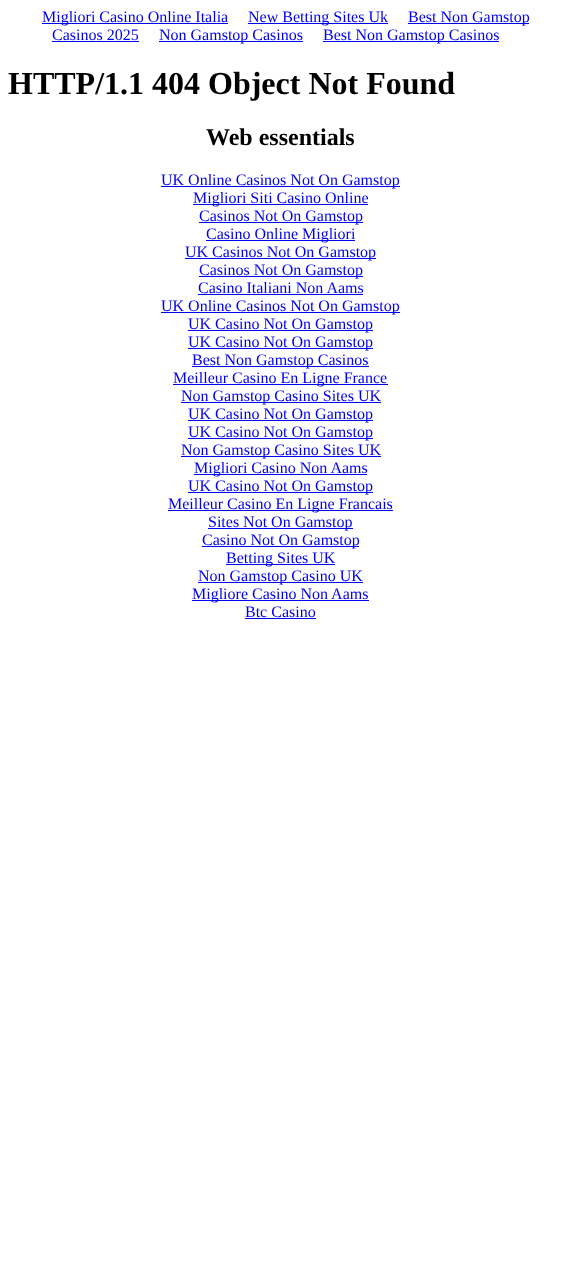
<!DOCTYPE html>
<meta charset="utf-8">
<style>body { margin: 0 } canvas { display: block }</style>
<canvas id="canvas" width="561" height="1265"></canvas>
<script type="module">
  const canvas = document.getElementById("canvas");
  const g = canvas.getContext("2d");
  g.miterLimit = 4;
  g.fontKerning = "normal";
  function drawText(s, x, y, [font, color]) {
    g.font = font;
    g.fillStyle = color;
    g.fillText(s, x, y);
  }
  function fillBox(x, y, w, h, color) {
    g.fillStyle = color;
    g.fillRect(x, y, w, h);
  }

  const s1 = ["16px Liberation Serif", "#0000EE"];
  const s2 = ["bold 32px Liberation Serif", "#000000"];
  const s3 = ["bold 24px Liberation Serif", "#000000"];

  fillBox(0, 0, 561, 1265, "#FFFFFF");
  fillBox(42, 23, 186, 1, "#0000EE");
  drawText("Migliori Casino Online Italia", 42, 22, s1);
  fillBox(248, 23, 140, 1, "#0000EE");
  drawText("New Betting Sites Uk", 248, 22, s1);
  fillBox(408, 23, 121, 1, "#0000EE");
  drawText("Best Non Gamstop", 408, 22, s1);
  drawText("Casinos 2025", 52, 40, s1);
  fillBox(52, 41, 87, 1, "#0000EE");
  fillBox(159, 41, 144, 1, "#0000EE");
  drawText("Non Gamstop Casinos", 159, 40, s1);
  fillBox(323, 41, 176, 1, "#0000EE");
  drawText("Best Non Gamstop Casinos", 323, 40, s1);
  drawText("HTTP/1.1 404 Object Not Found", 8, 94, s2);
  drawText("Web essentials", 206, 145, s3);
  fillBox(161, 186, 239, 1, "#0000EE");
  drawText("UK Online Casinos Not On Gamstop", 161, 185, s1);
  fillBox(193, 204, 175, 1, "#0000EE");
  drawText("Migliori Siti Casino Online", 193, 203, s1);
  fillBox(199, 222, 164, 1, "#0000EE");
  drawText("Casinos Not On Gamstop", 199, 221, s1);
  fillBox(206, 240, 149, 1, "#0000EE");
  drawText("Casino Online Migliori", 206, 239, s1);
  fillBox(185, 258, 191, 1, "#0000EE");
  drawText("UK Casinos Not On Gamstop", 185, 257, s1);
  fillBox(199, 276, 164, 1, "#0000EE");
  drawText("Casinos Not On Gamstop", 199, 275, s1);
  drawText("Casino Italiani Non Aams", 198, 293, s1);
  fillBox(198, 294, 165, 1, "#0000EE");
  fillBox(161, 312, 239, 1, "#0000EE");
  drawText("UK Online Casinos Not On Gamstop", 161, 311, s1);
  fillBox(188, 330, 185, 1, "#0000EE");
  drawText("UK Casino Not On Gamstop", 188, 329, s1);
  fillBox(188, 348, 185, 1, "#0000EE");
  drawText("UK Casino Not On Gamstop", 188, 347, s1);
  fillBox(192, 366, 177, 1, "#0000EE");
  drawText("Best Non Gamstop Casinos", 192, 365, s1);
  fillBox(173, 384, 215, 1, "#0000EE");
  drawText("Meilleur Casino En Ligne France", 173, 383, s1);
  fillBox(181, 402, 200, 1, "#0000EE");
  drawText("Non Gamstop Casino Sites UK", 181, 401, s1);
  fillBox(188, 420, 185, 1, "#0000EE");
  drawText("UK Casino Not On Gamstop", 188, 419, s1);
  fillBox(188, 438, 185, 1, "#0000EE");
  drawText("UK Casino Not On Gamstop", 188, 437, s1);
  fillBox(181, 456, 200, 1, "#0000EE");
  drawText("Non Gamstop Casino Sites UK", 181, 455, s1);
  fillBox(194, 474, 173, 1, "#0000EE");
  drawText("Migliori Casino Non Aams", 194, 473, s1);
  fillBox(188, 492, 185, 1, "#0000EE");
  drawText("UK Casino Not On Gamstop", 188, 491, s1);
  fillBox(168, 510, 225, 1, "#0000EE");
  drawText("Meilleur Casino En Ligne Francais", 168, 509, s1);
  fillBox(208, 528, 145, 1, "#0000EE");
  drawText("Sites Not On Gamstop", 208, 527, s1);
  fillBox(202, 546, 157, 1, "#0000EE");
  drawText("Casino Not On Gamstop", 202, 545, s1);
  fillBox(226, 564, 109, 1, "#0000EE");
  drawText("Betting Sites UK", 226, 563, s1);
  fillBox(198, 582, 165, 1, "#0000EE");
  drawText("Non Gamstop Casino UK", 198, 581, s1);
  fillBox(192, 600, 177, 1, "#0000EE");
  drawText("Migliore Casino Non Aams", 192, 599, s1);
  drawText("Btc Casino", 245, 617, s1);
  fillBox(245, 618, 71, 1, "#0000EE");
</script>
